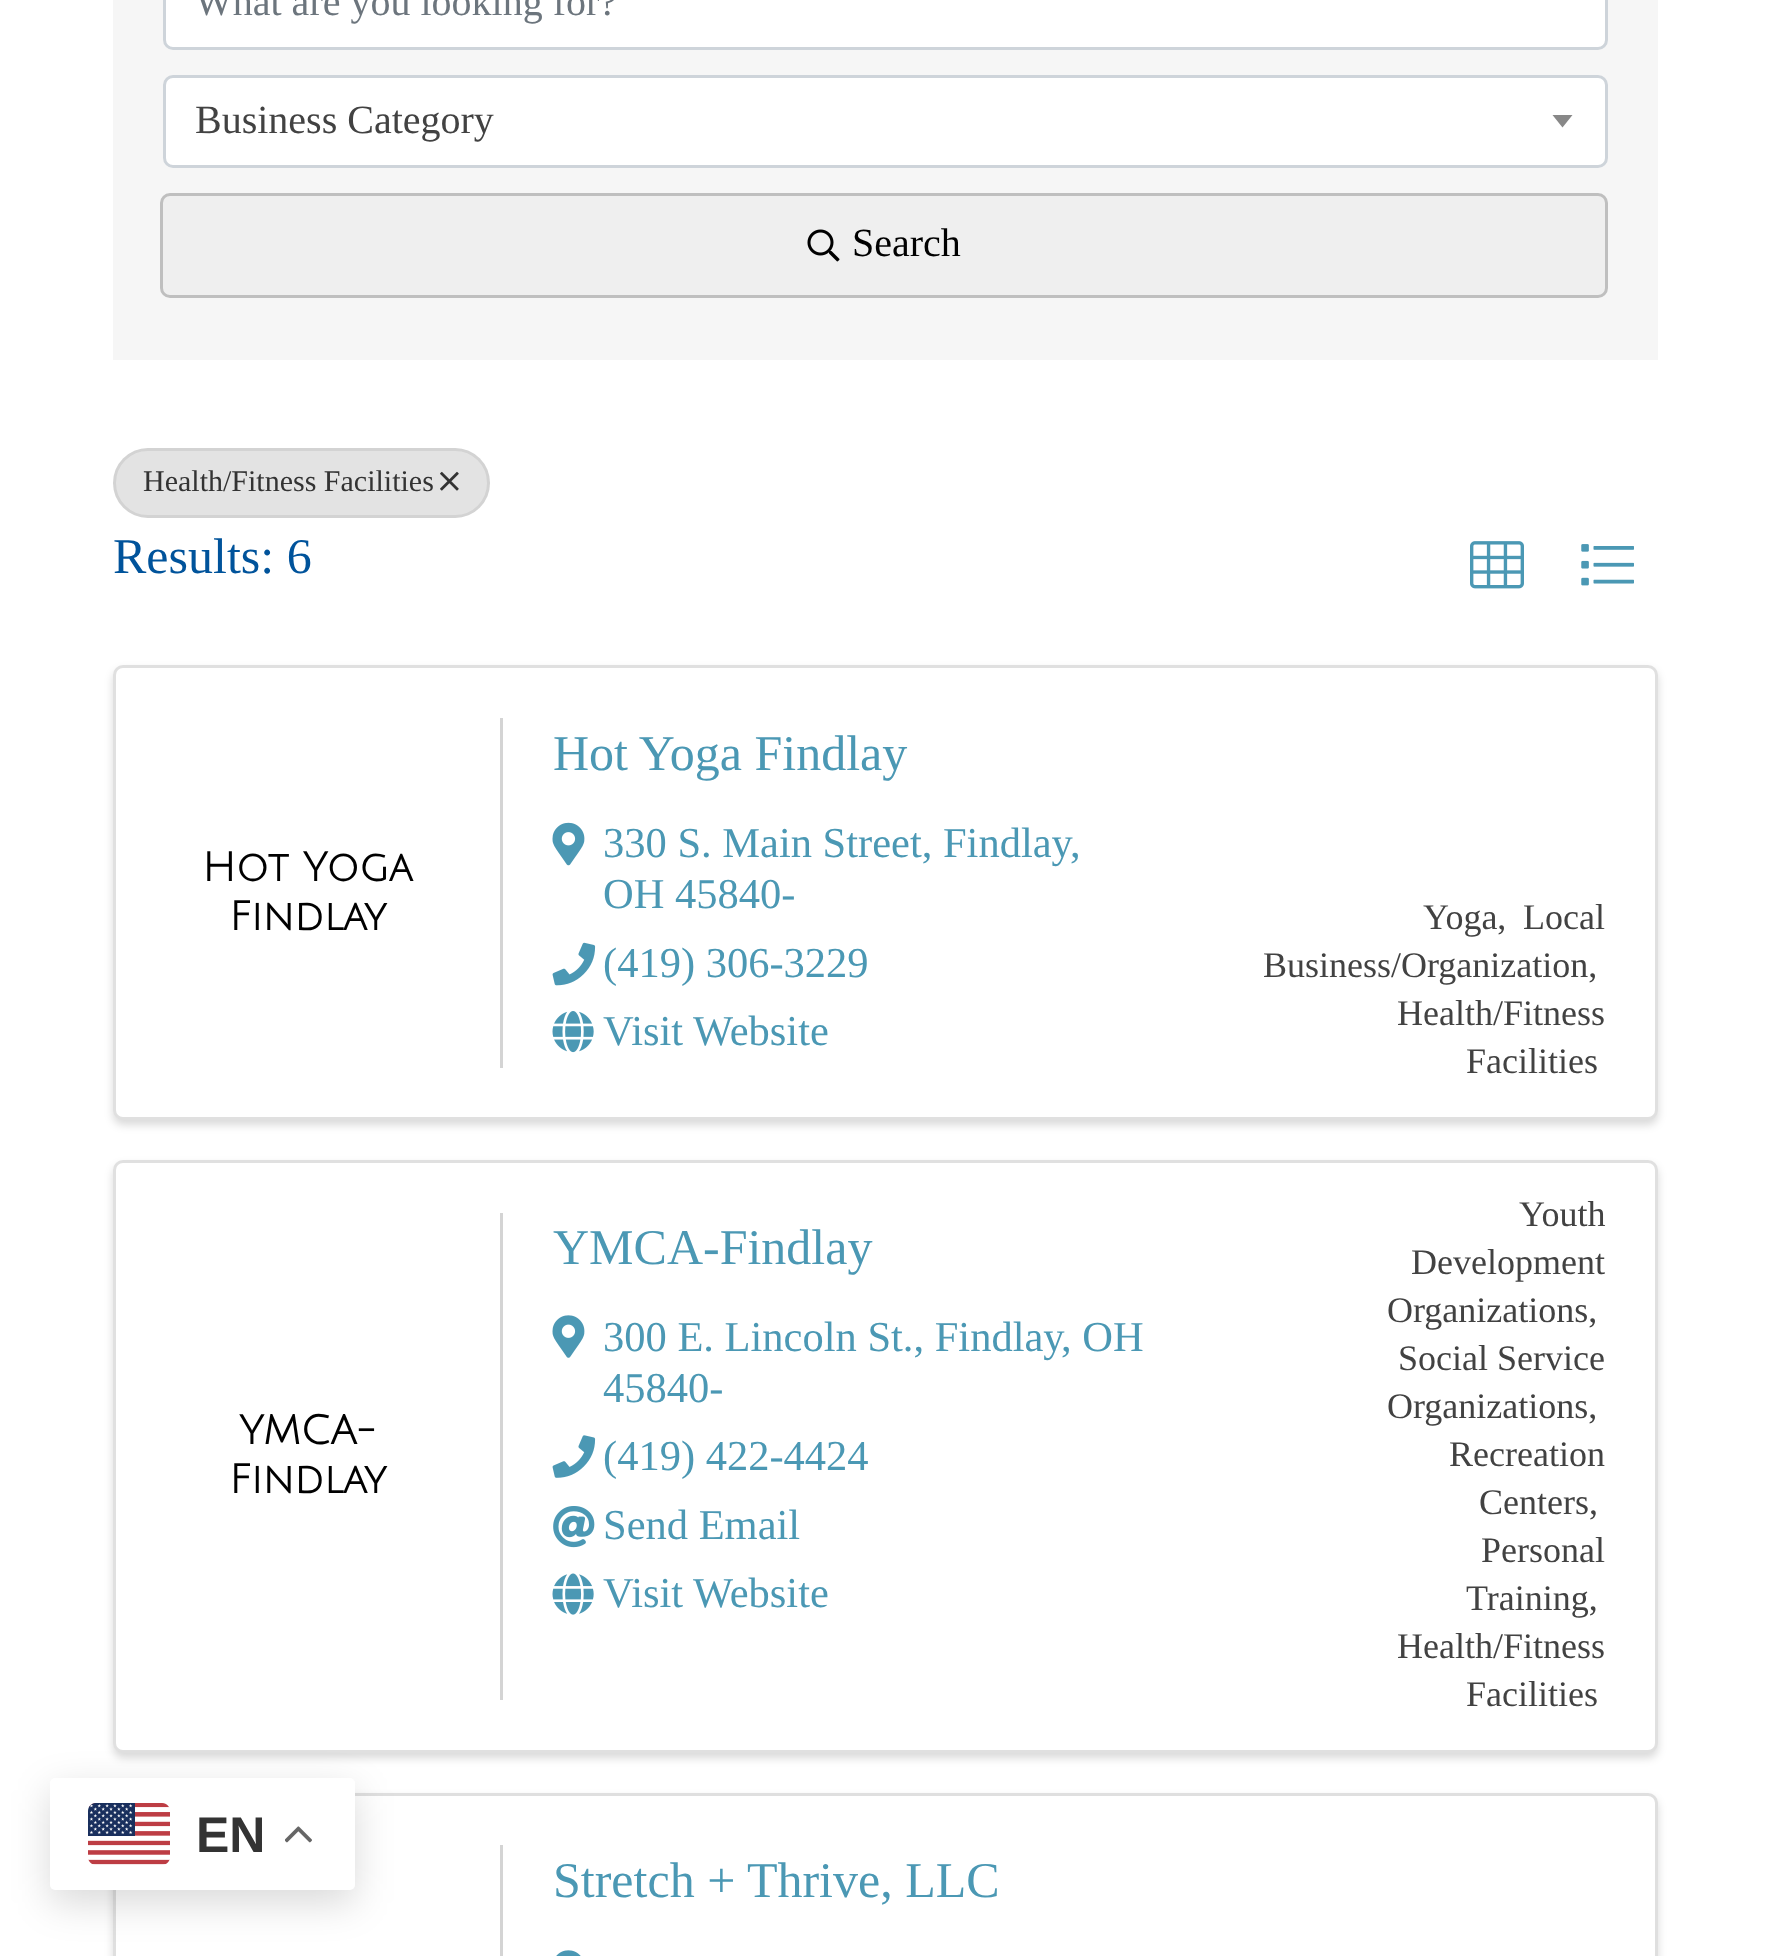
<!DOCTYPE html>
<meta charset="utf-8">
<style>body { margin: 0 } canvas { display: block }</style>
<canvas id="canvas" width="1770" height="1956"></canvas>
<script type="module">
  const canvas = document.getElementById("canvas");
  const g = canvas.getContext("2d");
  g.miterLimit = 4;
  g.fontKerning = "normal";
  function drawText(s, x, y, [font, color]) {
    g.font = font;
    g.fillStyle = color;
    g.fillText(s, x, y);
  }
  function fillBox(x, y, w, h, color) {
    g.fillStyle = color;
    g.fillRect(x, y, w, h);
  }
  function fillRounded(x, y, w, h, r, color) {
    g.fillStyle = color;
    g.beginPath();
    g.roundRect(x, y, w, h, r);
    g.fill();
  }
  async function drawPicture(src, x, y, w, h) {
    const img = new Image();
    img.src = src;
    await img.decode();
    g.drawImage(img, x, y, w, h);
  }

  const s1 = ["40px Liberation Serif", "#6C757D"];
  const s2 = ["40px Liberation Serif", "#424242"];
  const s3 = ["40px Liberation Serif", "#000000"];
  const s4 = ["30px Liberation Serif", "#333333"];
  const s5 = ["50px Liberation Serif", "#00539B"];
  const s6 = ["bold 40px Julius Sans One", "#000000"];
  const s7 = ["50px Liberation Serif", "#4B98B4"];
  const s8 = ["42.5px Liberation Serif", "#4B98B4"];
  const s9 = ["36px Liberation Serif", "#424242"];
  const s10 = ["bold 50px Liberation Sans", "#333333"];

  fillBox(0, 0, 1770, 1956, "#FFFFFF");
  fillBox(113, 0, 1545, 360, "#F6F6F6");
  fillRounded(165, -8, 1440, 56, 8, "#FFFFFF");
  g.beginPath();
  g.roundRect(164.5, -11.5, 1442, 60, 8.5);
  g.strokeStyle = "#CED4DA";
  g.lineWidth = 3;
  g.stroke();
  drawText("What are you looking for?", 195, 15, s1);
  g.fillStyle = "#FFFFFF";
  g.beginPath();
  g.roundRect(164.5, 76.5, 1442, 90, 8.5);
  g.fill();
  g.stroke();
  drawText("Business Category", 195, 133, s2);
  g.fillStyle = "#888888";
  g.beginPath();
  g.moveTo(1552.5, 115);
  g.lineTo(1572.5, 115);
  g.lineTo(1562.5, 127.5);
  g.closePath();
  g.fill();
  fillRounded(160, 193, 1448, 105, 10, "#EFEFEF");
  g.beginPath();
  g.roundRect(161.5, 194.5, 1445, 102, 8.5);
  g.strokeStyle = "rgba(0, 0, 0, 0.2)";
  g.stroke();
  await drawPicture("pic1.png", 807, 229, 33, 33);
  drawText("Search", 852, 256, s3);
  fillRounded(113, 448, 377, 70, 35, "#E3E3E3");
  g.beginPath();
  g.roundRect(114.5, 449.5, 374, 67, 33.5);
  g.strokeStyle = "rgba(0, 0, 0, 0.07)";
  g.stroke();
  drawText("Health/Fitness Facilities", 143, 491, s4);
  await drawPicture("pic2.png", 440, 471, 19, 20);
  drawText("Results: 6", 113, 573, s5);
  await drawPicture("pic3.png", 1470, 541, 54, 48);
  await drawPicture("pic4.png", 1581, 544, 53, 42);
  g.fillStyle = "rgba(0, 0, 0, 0.15)";
  g.filter = "blur(4.5px)";
  g.beginPath();
  g.roundRect(113, 670, 1545, 455, 10);
  g.fill();
  g.filter = "none";
  fillRounded(113, 665, 1545, 455, 10, "#FFFFFF");
  g.beginPath();
  g.roundRect(114.5, 666.5, 1542, 452, 8.5);
  g.strokeStyle = "rgba(0, 0, 0, 0.12)";
  g.stroke();
  drawText("Hot Yoga", 202, 881, s6);
  drawText("Findlay", 229, 930, s6);
  fillBox(500, 718, 3, 350, "#D4D4D4");
  drawText("Hot Yoga Findlay", 553, 770, s7);
  await drawPicture("pic5.png", 552, 822, 33, 44);
  drawText("330 S. Main Street, Findlay", 603, 857, s8);
  drawText(",", 1070, 857, s8);
  drawText("OH 45840-", 603, 908, s8);
  await drawPicture("pic6.png", 552, 942, 44, 44);
  drawText("(419) 306-3229", 603, 977, s8);
  await drawPicture("pic7.png", 552, 1011, 42, 42);
  drawText("Visit Website", 603, 1045, s8);
  drawText("Yoga,", 1423, 929, s9);
  drawText("Local", 1523, 929, s9);
  drawText("Business/Organization,", 1263, 977, s9);
  drawText("Health/Fitness", 1397, 1025, s9);
  drawText("Facilities", 1466, 1073, s9);
  g.fillStyle = "rgba(0, 0, 0, 0.15)";
  g.filter = "blur(4.5px)";
  g.beginPath();
  g.roundRect(113, 1165, 1545, 593, 10);
  g.fill();
  g.filter = "none";
  fillRounded(113, 1160, 1545, 593, 10, "#FFFFFF");
  g.beginPath();
  g.roundRect(114.5, 1161.5, 1542, 590, 8.5);
  g.stroke();
  drawText("YMCA-", 239, 1444, s6);
  drawText("Findlay", 229, 1493, s6);
  fillBox(500, 1213, 3, 487, "#D4D4D4");
  drawText("YMCA-Findlay", 553, 1264, s7);
  await drawPicture("pic8.png", 552, 1315, 33, 43);
  drawText("300 E. Lincoln St., Findlay", 603, 1351, s8);
  drawText(", OH", 1061, 1351, s8);
  drawText("45840-", 603, 1402, s8);
  await drawPicture("pic9.png", 552, 1435, 44, 43);
  drawText("(419) 422-4424", 603, 1470, s8);
  await drawPicture("pic10.png", 553, 1506, 42, 42);
  drawText("Send Email", 603, 1539, s8);
  await drawPicture("pic11.png", 552, 1573, 42, 42);
  drawText("Visit Website", 603, 1607, s8);
  drawText("Youth", 1519, 1226, s9);
  drawText("Development", 1411, 1274, s9);
  drawText("Organizations,", 1387, 1322, s9);
  drawText("Social Service", 1398, 1370, s9);
  drawText("Organizations,", 1387, 1418, s9);
  drawText("Recreation", 1449, 1466, s9);
  drawText("Centers,", 1479, 1514, s9);
  drawText("Personal", 1481, 1562, s9);
  drawText("Training,", 1466, 1610, s9);
  drawText("Health/Fitness", 1397, 1658, s9);
  drawText("Facilities", 1466, 1706, s9);
  g.fillStyle = "rgba(0, 0, 0, 0.15)";
  g.filter = "blur(4.5px)";
  g.beginPath();
  g.roundRect(113, 1798, 1545, 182, 10);
  g.fill();
  g.filter = "none";
  g.fillStyle = "#FFFFFF";
  g.beginPath();
  g.roundRect(114.5, 1794.5, 1542, 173, 8.5);
  g.fill();
  g.strokeStyle = "#DFDFDF";
  g.stroke();
  fillBox(500, 1845, 3, 111, "#D4D4D4");
  drawText("Stretch + Thrive, LLC", 553, 1897, s7);
  await drawPicture("pic12.png", 556, 1950, 25, 6);
  g.fillStyle = "rgba(0, 0, 0, 0.15)";
  g.filter = "blur(19px)";
  g.beginPath();
  g.roundRect(50, 1790, 305, 113, 5);
  g.fill();
  g.filter = "none";
  fillRounded(50, 1778, 305, 112, 5, "#FFFFFF");
  await drawPicture("pic13.png", 88, 1803, 82, 62);
  drawText("EN", 196, 1852, s10);
  await drawPicture("pic14.png", 285, 1826, 27, 17);
</script>
